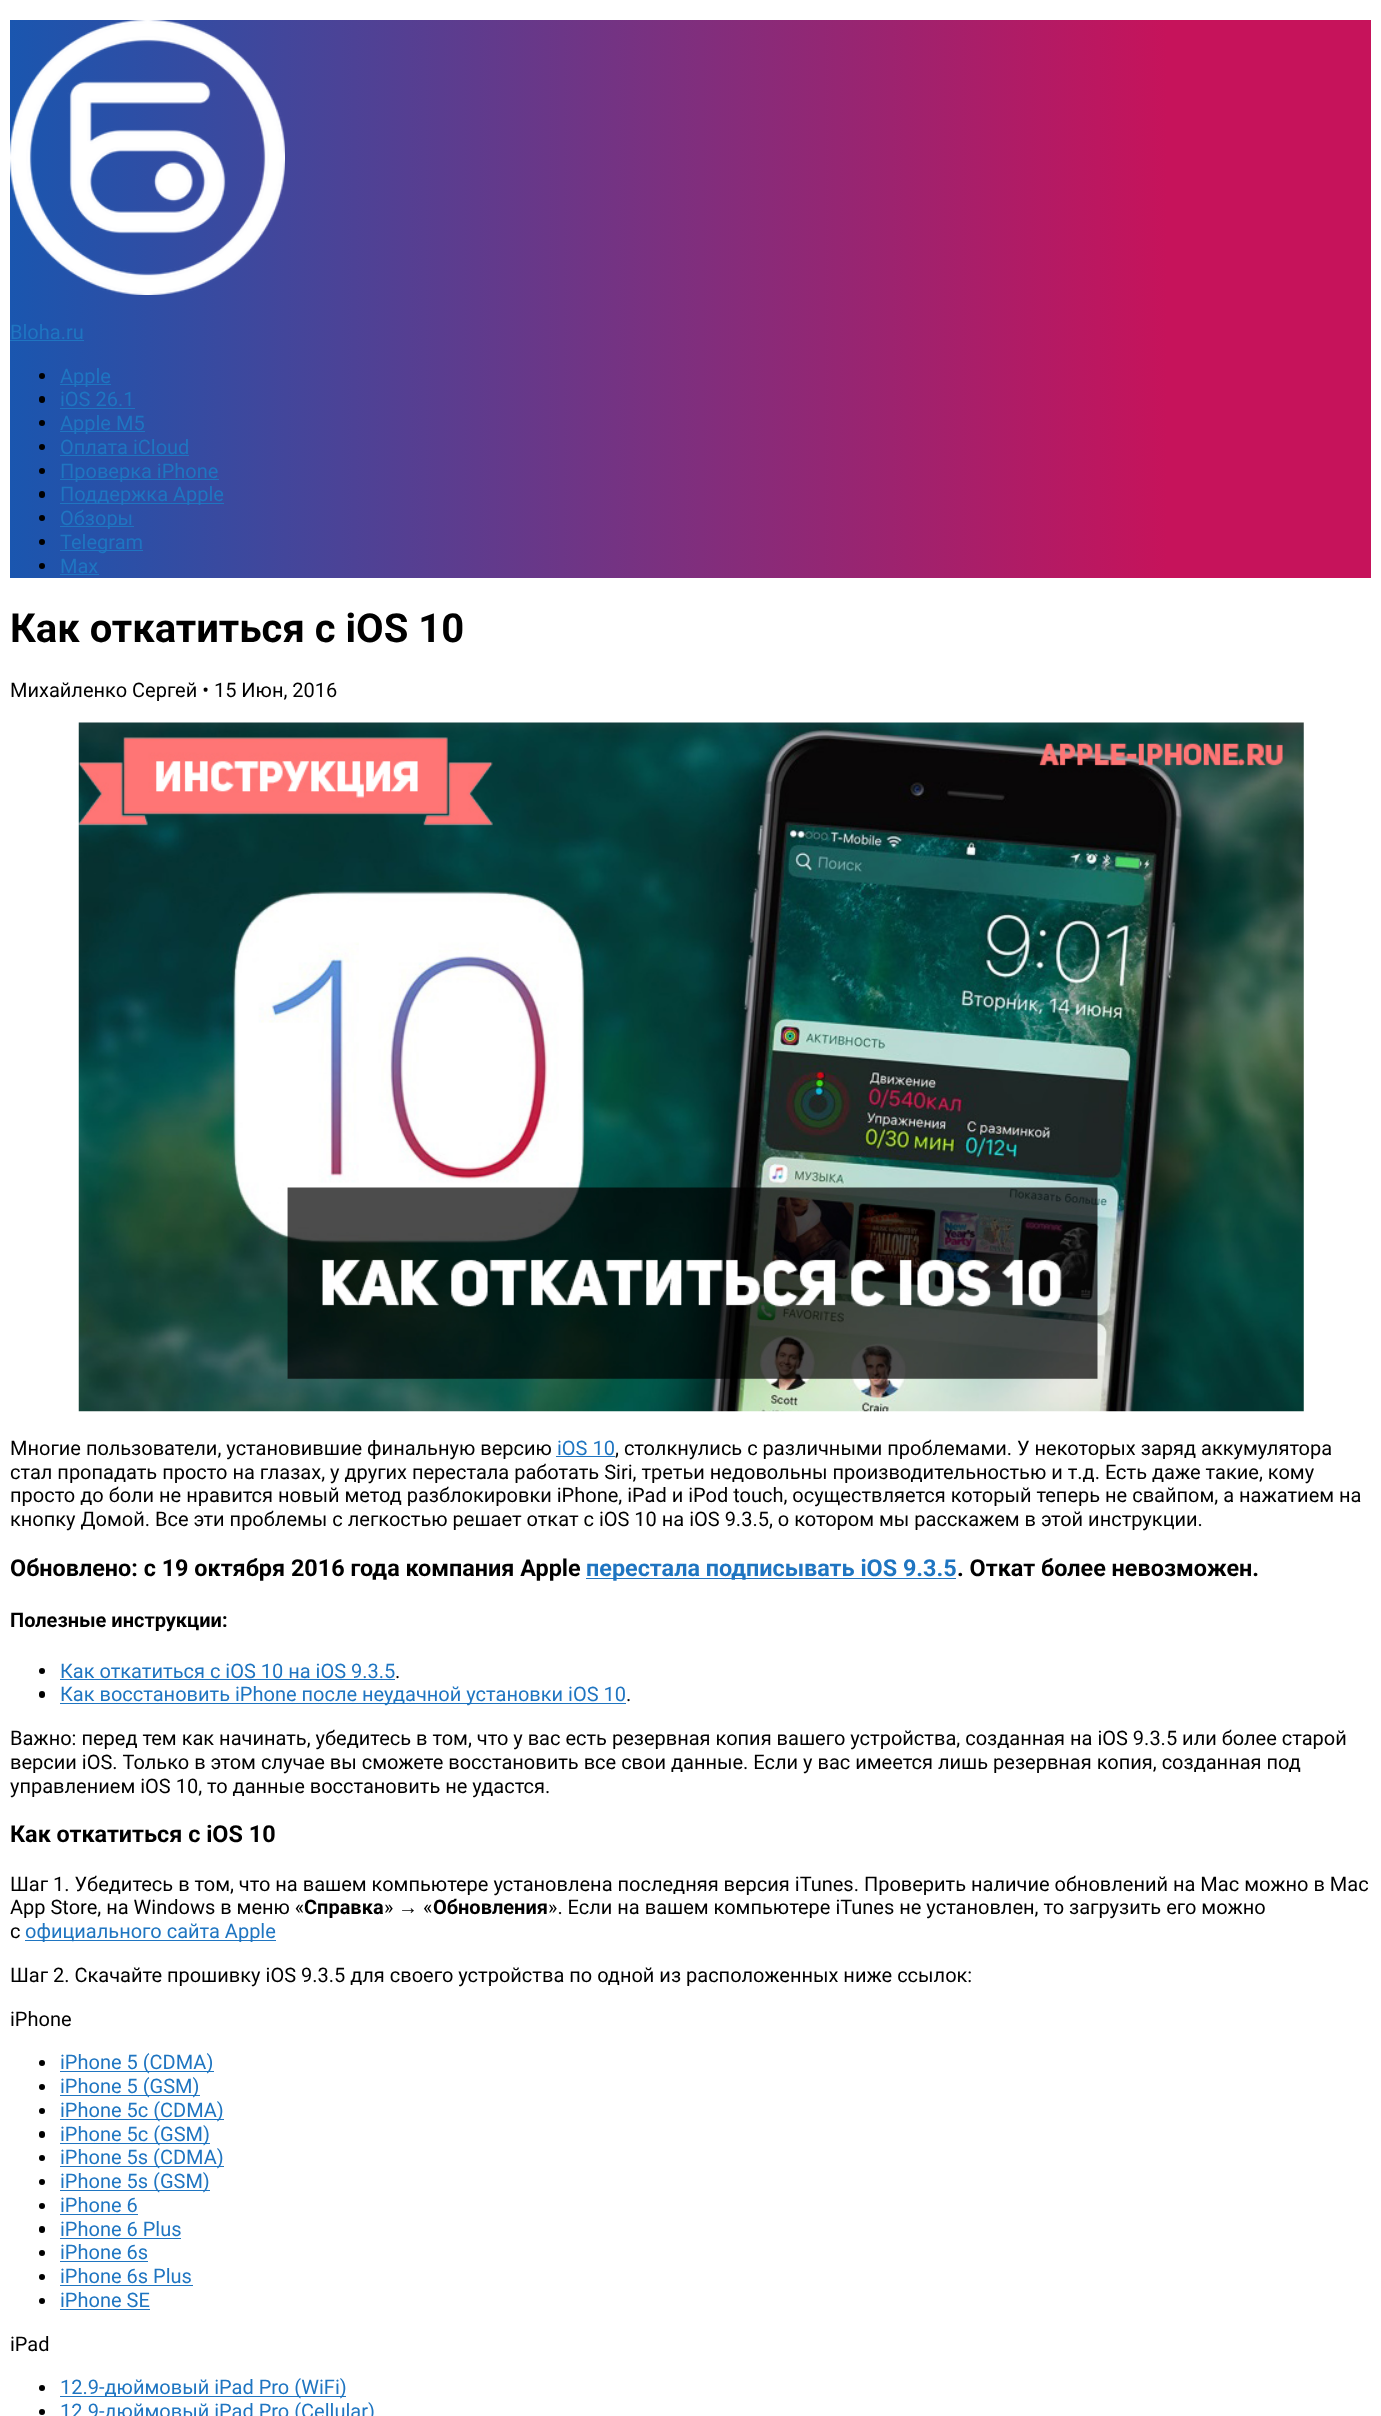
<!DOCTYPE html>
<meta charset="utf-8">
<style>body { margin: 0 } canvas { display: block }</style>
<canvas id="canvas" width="1381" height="2416"></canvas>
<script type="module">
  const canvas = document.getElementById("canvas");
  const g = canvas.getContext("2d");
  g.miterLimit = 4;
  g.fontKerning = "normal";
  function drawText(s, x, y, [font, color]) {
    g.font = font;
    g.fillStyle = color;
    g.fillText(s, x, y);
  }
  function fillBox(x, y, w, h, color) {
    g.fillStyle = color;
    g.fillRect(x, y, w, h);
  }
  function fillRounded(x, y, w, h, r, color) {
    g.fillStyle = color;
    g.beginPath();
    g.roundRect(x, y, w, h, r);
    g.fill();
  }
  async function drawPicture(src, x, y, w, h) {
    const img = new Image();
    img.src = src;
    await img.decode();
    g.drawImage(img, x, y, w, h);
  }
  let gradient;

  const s1 = ["20px Roboto", "#1F75C1"];
  const s2 = ["bold 40px Roboto", "#000000"];
  const s3 = ["20px Roboto", "#000000"];
  const s4 = ["bold 23.4px Roboto", "#000000"];
  const s5 = ["bold 23.4px Roboto", "#1F75C1"];
  const s6 = ["bold 20px Roboto", "#000000"];
  const s7 = ["20px Liberation Sans", "#000000"];

  fillBox(0, 0, 1381, 2416, "#FFFFFF");
  gradient = g.createLinearGradient(10, 299, 1371, 299);
  gradient.addColorStop(0, "#1A56AF");
  gradient.addColorStop(0.85, "#C6135B");
  g.fillStyle = gradient;
  g.fillRect(10, 20, 1361, 558);
  await drawPicture("pic1.png", 10, 20, 275, 275);
  drawText("Bloha.ru", 10, 339, s1);
  fillBox(10, 340, 74, 1, "#1F75C1");
  g.fillStyle = "#000000";
  g.beginPath();
  g.arc(42, 376, 3, 0, Math.PI * 2);
  g.fill();
  fillBox(60, 384, 51, 1, "#1F75C1");
  drawText("Apple", 60, 383, s1);
  fillRounded(39, 396, 6, 7, 3, "#000000");
  drawText("iOS 26.1", 60, 406, s1);
  fillBox(60, 408, 75, 1, "#1F75C1");
  g.fillStyle = "#000000";
  g.beginPath();
  g.arc(42, 423, 3, 0, Math.PI * 2);
  g.fill();
  fillBox(60, 431, 85, 1, "#1F75C1");
  drawText("Apple M5", 60, 430, s1);
  g.fillStyle = "#000000";
  g.beginPath();
  g.arc(42, 447, 3, 0, Math.PI * 2);
  g.fill();
  drawText("Оплата iCloud", 60, 454, s1);
  fillBox(60, 455, 129, 1, "#1F75C1");
  g.fillStyle = "#000000";
  g.beginPath();
  g.arc(42, 471, 3, 0, Math.PI * 2);
  g.fill();
  fillBox(60, 479, 159, 1, "#1F75C1");
  drawText("Проверка iPhone", 60, 478, s1);
  fillRounded(39, 491, 6, 7, 3, "#000000");
  fillBox(60, 503, 164, 1, "#1F75C1");
  drawText("Поддержка Apple", 60, 501, s1);
  g.fillStyle = "#000000";
  g.beginPath();
  g.arc(42, 518, 3, 0, Math.PI * 2);
  g.fill();
  fillBox(60, 526, 74, 1, "#1F75C1");
  drawText("Обзоры", 60, 525, s1);
  g.fillStyle = "#000000";
  g.beginPath();
  g.arc(42, 542, 3, 0, Math.PI * 2);
  g.fill();
  fillBox(60, 550, 83, 1, "#1F75C1");
  drawText("Telegram", 60, 549, s1);
  g.fillStyle = "#000000";
  g.beginPath();
  g.arc(42, 566, 3, 0, Math.PI * 2);
  g.fill();
  drawText("Max", 60, 573, s1);
  fillBox(60, 574, 39, 1, "#1F75C1");
  drawText("Как откатиться с iOS 10", 10, 642, s2);
  drawText("Михайленко Сергей • 15 Июн, 2016", 10, 697, s3);
  await drawPicture("pic2.png", 78, 722, 1226, 690);
  drawText("Многие пользователи, установившие финальную версию", 10, 1455, s3);
  drawText("iOS 10", 557, 1455, s1);
  fillBox(556, 1456, 59, 1, "#1F75C1");
  drawText(", столкнулись с различными проблемами. У некоторых заряд аккумулятора", 615, 1455, s3);
  drawText("стал пропадать просто на глазах, у других перестала работать Siri, третьи недовольны производительностью и т.д. Есть даже такие, кому", 10, 1479, s3);
  drawText("просто до боли не нравится новый метод разблокировки iPhone, iPad и iPod touch, осуществляется который теперь не свайпом, а нажатием на", 10, 1502, s3);
  drawText("кнопку Домой. Все эти проблемы с легкостью решает откат с iOS 10 на iOS 9.3.5, о котором мы расскажем в этой инструкции.", 10, 1526, s3);
  drawText("Обновлено: с 19 октября 2016 года компания Apple", 10, 1576, s4);
  fillBox(586, 1578, 370, 1, "#1F75C1");
  drawText("перестала подписывать iOS 9.3.5", 586, 1576, s5);
  drawText(". Откат более невозможен.", 957, 1576, s4);
  drawText("Полезные инструкции:", 10, 1627, s6);
  g.beginPath();
  g.arc(42, 1671, 3, 0, Math.PI * 2);
  g.fill();
  drawText("Как откатиться с iOS 10 на iOS 9.3.5", 60, 1678, s1);
  fillBox(60, 1679, 335, 1, "#1F75C1");
  drawText(".", 395, 1678, s3);
  fillRounded(39, 1691, 6, 7, 3, "#000000");
  fillBox(60, 1703, 566, 1, "#1F75C1");
  drawText("Как восстановить iPhone после неудачной установки iOS 10", 60, 1701, s1);
  drawText(".", 626, 1701, s3);
  drawText("Важно: перед тем как начинать, убедитесь в том, что у вас есть резервная копия вашего устройства, созданная на iOS 9.3.5 или более старой", 10, 1745, s3);
  drawText("версии iOS. Только в этом случае вы сможете восстановить все свои данные. Если у вас имеется лишь резервная копия, созданная под", 10, 1769, s3);
  drawText("управлением iOS 10, то данные восстановить не удастся.", 10, 1793, s3);
  drawText("Как откатиться с iOS 10", 10, 1842, s4);
  drawText("Шаг 1. Убедитесь в том, что на вашем компьютере установлена последняя версия iTunes. Проверить наличие обновлений на Mac можно в Mac", 10, 1891, s3);
  drawText("App Store, на Windows в меню «", 10, 1914, s3);
  drawText("Справка", 304, 1914, s6);
  drawText("»", 384, 1914, s3);
  drawText("→", 398, 1914, s7);
  drawText("«", 423, 1914, s3);
  drawText("Обновления", 433, 1914, s6);
  drawText("». Если на вашем компьютере iTunes не установлен, то загрузить его можно", 548, 1914, s3);
  drawText("с", 10, 1938, s3);
  fillBox(25, 1940, 251, 1, "#1F75C1");
  drawText("официального сайта Apple", 25, 1938, s1);
  drawText("Шаг 2. Скачайте прошивку iOS 9.3.5 для своего устройства по одной из расположенных ниже ссылок:", 10, 1982, s3);
  drawText("iPhone", 10, 2026, s3);
  g.beginPath();
  g.arc(42, 2063, 3, 0, Math.PI * 2);
  g.fill();
  fillBox(60, 2071, 154, 1, "#1F75C1");
  drawText("iPhone 5 (CDMA)", 60, 2069, s1);
  g.fillStyle = "#000000";
  g.beginPath();
  g.arc(42, 2087, 3, 0, Math.PI * 2);
  g.fill();
  fillBox(60, 2095, 140, 1, "#1F75C1");
  drawText("iPhone 5 (GSM)", 60, 2093, s1);
  g.fillStyle = "#000000";
  g.beginPath();
  g.arc(42, 2111, 3, 0, Math.PI * 2);
  g.fill();
  fillBox(60, 2119, 164, 1, "#1F75C1");
  drawText("iPhone 5c (CDMA)", 60, 2117, s1);
  fillRounded(39, 2131, 6, 7, 3, "#000000");
  fillBox(60, 2143, 150, 1, "#1F75C1");
  drawText("iPhone 5c (GSM)", 60, 2141, s1);
  g.fillStyle = "#000000";
  g.beginPath();
  g.arc(42, 2158, 3, 0, Math.PI * 2);
  g.fill();
  fillBox(60, 2166, 164, 1, "#1F75C1");
  drawText("iPhone 5s (CDMA)", 60, 2164, s1);
  g.fillStyle = "#000000";
  g.beginPath();
  g.arc(42, 2182, 3, 0, Math.PI * 2);
  g.fill();
  fillBox(60, 2190, 150, 1, "#1F75C1");
  drawText("iPhone 5s (GSM)", 60, 2188, s1);
  g.fillStyle = "#000000";
  g.beginPath();
  g.arc(42, 2206, 3, 0, Math.PI * 2);
  g.fill();
  drawText("iPhone 6", 60, 2212, s1);
  fillBox(60, 2214, 78, 1, "#1F75C1");
  fillRounded(39, 2226, 6, 7, 3, "#000000");
  drawText("iPhone 6 Plus", 60, 2236, s1);
  fillBox(60, 2238, 121, 1, "#1F75C1");
  g.fillStyle = "#000000";
  g.beginPath();
  g.arc(42, 2253, 3, 0, Math.PI * 2);
  g.fill();
  drawText("iPhone 6s", 60, 2259, s1);
  fillBox(60, 2261, 88, 1, "#1F75C1");
  g.fillStyle = "#000000";
  g.beginPath();
  g.arc(42, 2277, 3, 0, Math.PI * 2);
  g.fill();
  drawText("iPhone 6s Plus", 60, 2283, s1);
  fillBox(60, 2285, 133, 1, "#1F75C1");
  g.fillStyle = "#000000";
  g.beginPath();
  g.arc(42, 2301, 3, 0, Math.PI * 2);
  g.fill();
  drawText("iPhone SE", 60, 2307, s1);
  fillBox(60, 2309, 90, 1, "#1F75C1");
  drawText("iPad", 10, 2351, s3);
  g.beginPath();
  g.arc(42, 2388, 3, 0, Math.PI * 2);
  g.fill();
  fillBox(60, 2396, 286, 1, "#1F75C1");
  drawText("12.9-дюймовый iPad Pro (WiFi)", 60, 2394, s1);
  g.fillStyle = "#000000";
  g.beginPath();
  g.arc(42, 2412, 3, 0, Math.PI * 2);
  g.fill();
  drawText("12.9-дюймовый iPad Pro (Cellular)", 60, 2418, s1);
</script>
